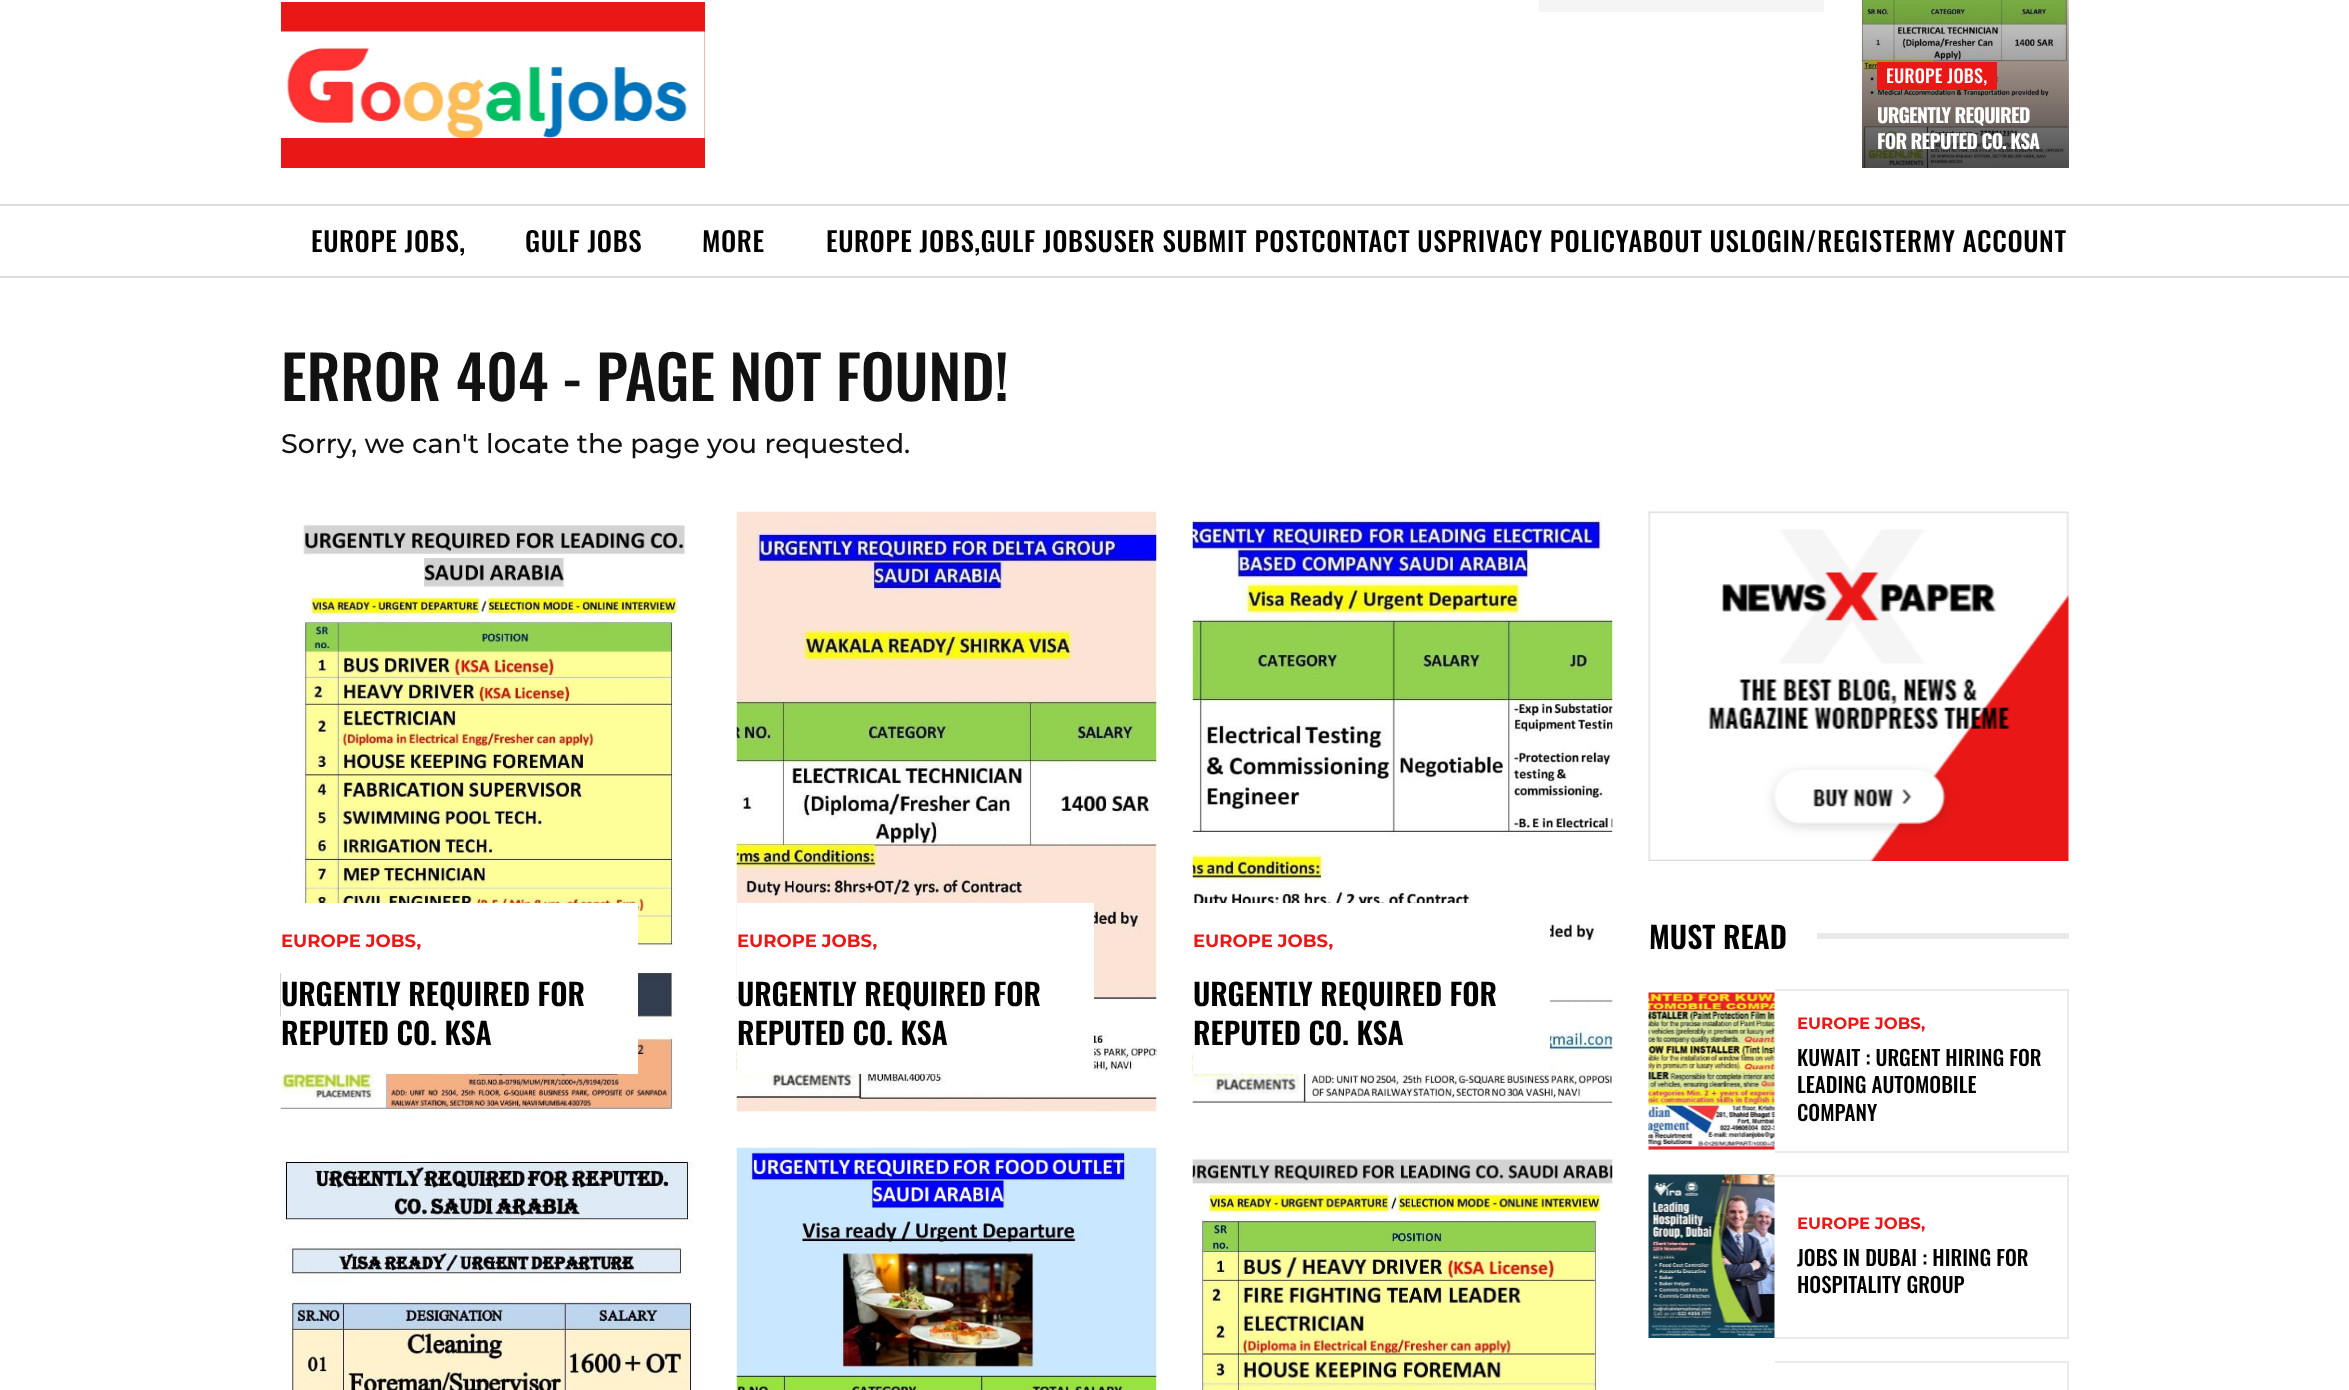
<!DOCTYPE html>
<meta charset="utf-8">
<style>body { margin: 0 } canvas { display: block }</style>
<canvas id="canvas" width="2349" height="1390"></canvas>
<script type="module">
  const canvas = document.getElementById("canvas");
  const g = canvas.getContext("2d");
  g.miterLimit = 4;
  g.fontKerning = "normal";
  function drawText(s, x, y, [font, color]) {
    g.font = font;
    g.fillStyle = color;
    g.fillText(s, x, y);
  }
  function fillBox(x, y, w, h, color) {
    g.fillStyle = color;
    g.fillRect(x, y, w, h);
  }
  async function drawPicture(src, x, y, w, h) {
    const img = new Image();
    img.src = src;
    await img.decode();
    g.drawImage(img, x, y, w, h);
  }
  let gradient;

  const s1 = ["500 18px Oswald", "#FFFFFF"];
  const s2 = ["bold 19.5px Oswald", "#FFFFFF"];
  const s3 = ["500 27px Oswald", "#000000"];
  const s4 = ["500 60px Oswald", "#111111"];
  const s5 = ["500 27px Montserrat", "#111111"];
  const s6 = ["bold 18px Montserrat", "#EA1717"];
  const s7 = ["600 30px Oswald", "#000000"];
  const s8 = ["bold 16.5px Montserrat", "#EA1717"];
  const s9 = ["500 21px Oswald", "#000000"];

  fillBox(0, 0, 2349, 1390, "#FFFFFF");
  fillBox(281, 2, 424, 166, "#EA1717");
  await drawPicture("pic1.png", 281, 31, 425, 107);
  fillBox(1539, 0, 285, 12, "#F5F5F5");
  await drawPicture("pic2.png", 1861, 0, 208, 168);
  gradient = g.createLinearGradient(1965, 168, 1965, -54);
  gradient.addColorStop(0, "rgba(0, 0, 0, 0.7)");
  gradient.addColorStop(1, "rgba(0, 0, 0, 0)");
  g.fillStyle = gradient;
  g.fillRect(1862, 0, 207, 168);
  fillBox(1877, 62, 120, 28, "#EA1717");
  g.letterSpacing = "0.25px";
  drawText("EUROPE JOBS,", 1886, 83, s1);
  g.letterSpacing = "-0.75px";
  drawText("URGENTLY REQUIRED", 1877, 123, s2);
  drawText("FOR REPUTED CO. KSA", 1877, 149, s2);
  fillBox(0, 204, 2349, 2, "#DDDDDD");
  fillBox(0, 276, 2349, 2, "#DDDDDD");
  g.letterSpacing = "0.6px";
  drawText("EUROPE JOBS,", 311, 252, s3);
  drawText("GULF JOBS", 525, 252, s3);
  drawText("MORE", 702, 252, s3);
  drawText("EUROPE JOBS,GULF JOBSUSER SUBMIT POSTCONTACT USPRIVACY POLICYABOUT USLOGIN/REGISTERMY ACCOUNT", 826, 252, s3);
  g.letterSpacing = "0px";
  drawText("ERROR 404 - PAGE NOT FOUND!", 281, 401, s4);
  drawText("Sorry, we can't locate the page you requested.", 281, 453, s5);
  await drawPicture("pic3.png", 280, 525, 405, 586);
  fillBox(281, 903, 357, 171, "#FFFFFF");
  drawText("EUROPE JOBS,", 281, 947, s6);
  drawText("URGENTLY REQUIRED FOR", 281, 1006, s7);
  drawText("REPUTED CO. KSA", 281, 1045, s7);
  await drawPicture("pic4.png", 281, 1156, 419, 234);
  await drawPicture("pic5.png", 736, 511, 421, 601);
  fillBox(737, 903, 357, 171, "#FFFFFF");
  drawText("EUROPE JOBS,", 737, 947, s6);
  drawText("URGENTLY REQUIRED FOR", 737, 1006, s7);
  drawText("REPUTED CO. KSA", 737, 1045, s7);
  await drawPicture("pic6.png", 736, 1147, 421, 243);
  await drawPicture("pic7.png", 1192, 512, 421, 593);
  fillBox(1193, 903, 357, 171, "#FFFFFF");
  drawText("EUROPE JOBS,", 1193, 947, s6);
  drawText("URGENTLY REQUIRED FOR", 1193, 1006, s7);
  drawText("REPUTED CO. KSA", 1193, 1045, s7);
  await drawPicture("pic8.png", 1192, 1159, 421, 231);
  await drawPicture("pic9.png", 1648, 511, 421, 350);
  drawText("MUST READ", 1649, 949, s7);
  fillBox(1817, 933, 252, 6, "#EAEAEA");
  await drawPicture("pic10.png", 1648, 992, 127, 158);
  fillBox(1775, 989, 294, 2, "#EAEAEA");
  fillBox(2067, 989, 2, 163, "#EAEAEA");
  fillBox(1775, 1151, 294, 2, "#EAEAEA");
  drawText("EUROPE JOBS,", 1797, 1029, s8);
  drawText("KUWAIT : URGENT HIRING FOR", 1797, 1066, s9);
  drawText("LEADING AUTOMOBILE", 1797, 1093, s9);
  drawText("COMPANY", 1797, 1121, s9);
  await drawPicture("pic11.png", 1648, 1174, 127, 164);
  fillBox(1775, 1175, 294, 2, "#EAEAEA");
  fillBox(2067, 1175, 2, 163, "#EAEAEA");
  fillBox(1775, 1337, 294, 2, "#EAEAEA");
  drawText("EUROPE JOBS,", 1797, 1229, s8);
  drawText("JOBS IN DUBAI : HIRING FOR", 1797, 1266, s9);
  drawText("HOSPITALITY GROUP", 1797, 1293, s9);
  fillBox(1775, 1361, 294, 2, "#EAEAEA");
  fillBox(2067, 1361, 2, 29, "#EAEAEA");
</script>
